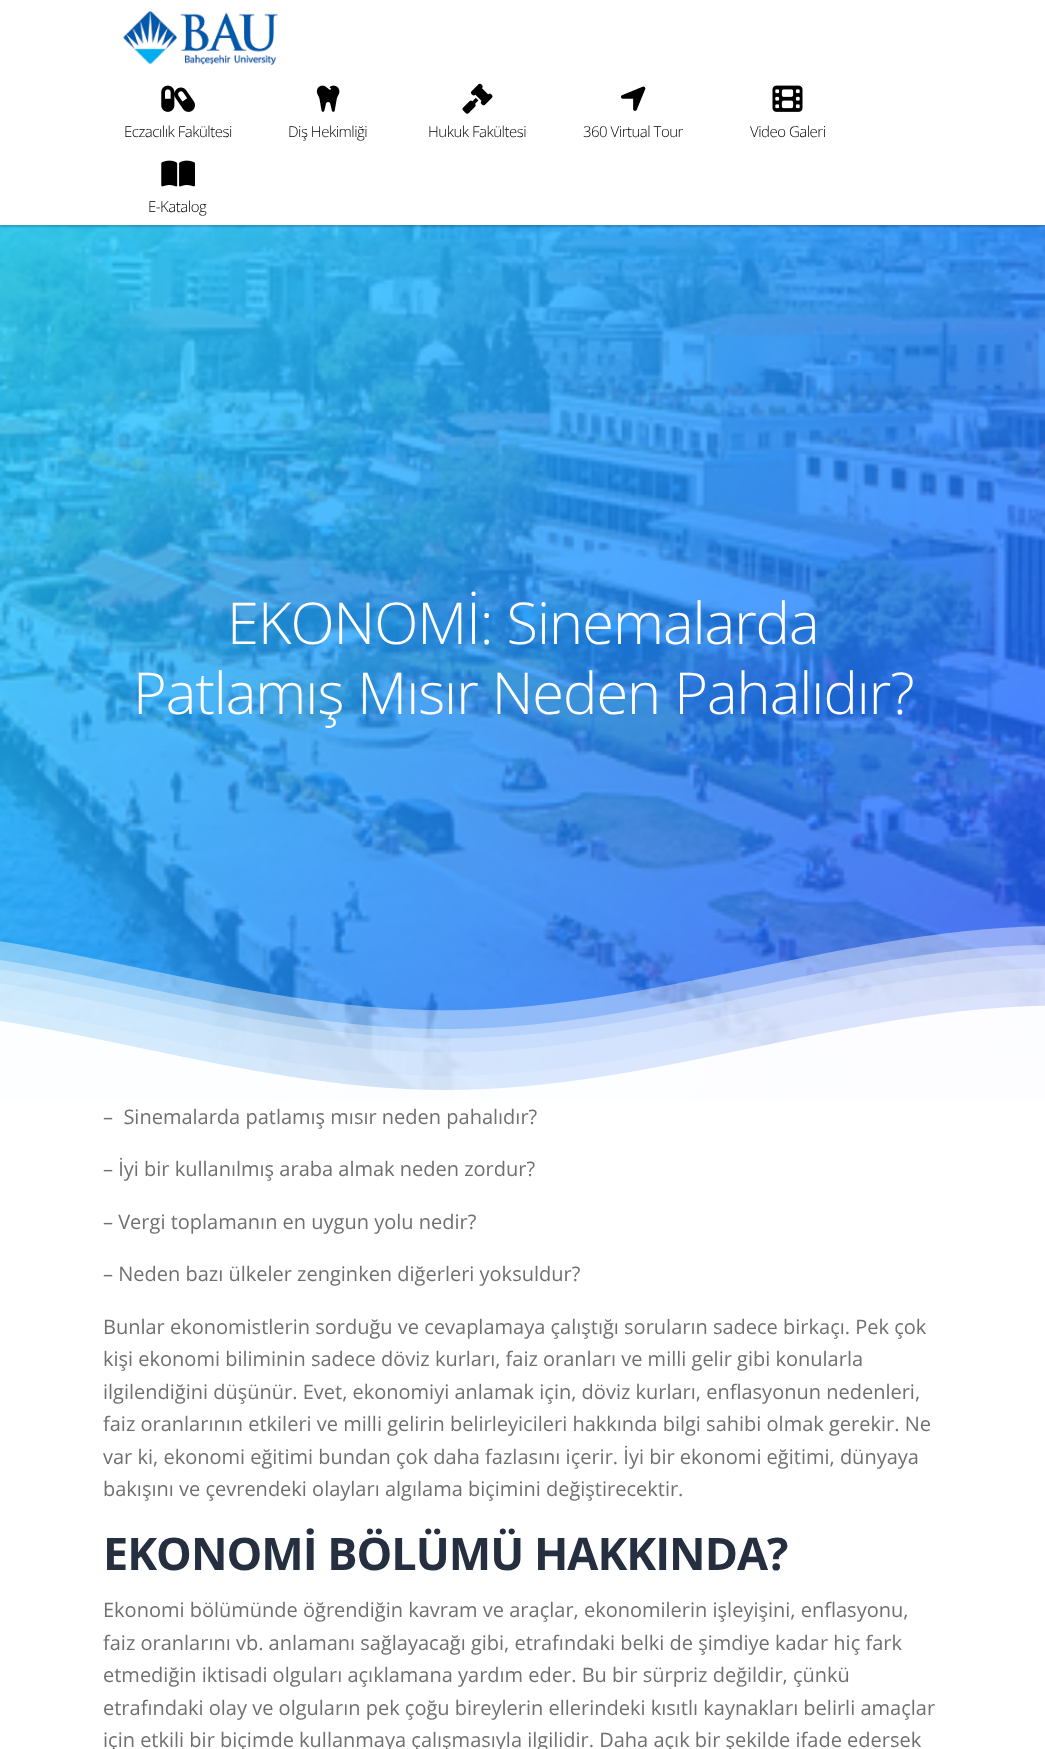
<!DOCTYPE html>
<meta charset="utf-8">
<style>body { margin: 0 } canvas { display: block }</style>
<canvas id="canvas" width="1045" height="1749"></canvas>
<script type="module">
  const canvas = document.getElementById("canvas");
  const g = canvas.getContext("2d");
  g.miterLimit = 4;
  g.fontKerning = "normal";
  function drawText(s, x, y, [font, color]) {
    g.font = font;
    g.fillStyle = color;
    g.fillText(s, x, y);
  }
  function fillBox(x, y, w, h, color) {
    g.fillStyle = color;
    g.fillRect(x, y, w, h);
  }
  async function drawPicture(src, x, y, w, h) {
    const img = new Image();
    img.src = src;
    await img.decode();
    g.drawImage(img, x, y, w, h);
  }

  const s1 = ["300 15px Open Sans", "#000000"];
  const s2 = ["300 57.75px Open Sans", "#FFFFFF"];
  const s3 = ["20px Open Sans", "#707070"];
  const s4 = ["bold 45px Open Sans", "#252F40"];

  fillBox(0, 0, 1045, 1749, "#FFFFFF");
  await drawPicture("pic8.png", 0, 225, 1045, 875);
  g.save();
  g.beginPath();
  g.rect(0, 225, 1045, 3);
  g.clip();
  g.fillStyle = "rgba(0, 0, 0, 0.48)";
  g.filter = "blur(2px)";
  g.beginPath();
  g.rect(0, 0, 1045, 225);
  g.fill();
  g.filter = "none";
  g.restore();
  await drawPicture("pic1.png", 123, 11, 155, 54);
  await drawPicture("pic2.png", 161, 85, 34, 27);
  g.letterSpacing = "-0.5px";
  drawText("Eczacılık Fakültesi", 124, 137, s1);
  await drawPicture("pic3.png", 316, 85, 24, 27);
  drawText("Diş Hekimliği", 288, 137, s1);
  await drawPicture("pic4.png", 462, 83, 31, 31);
  drawText("Hukuk Fakültesi", 428, 137, s1);
  await drawPicture("pic5.png", 621, 86, 25, 25);
  drawText("360 Virtual Tour", 583, 137, s1);
  await drawPicture("pic6.png", 772, 85, 31, 27);
  drawText("Video Galeri", 750, 137, s1);
  await drawPicture("pic7.png", 161, 160, 34, 27);
  drawText("E-Katalog", 148, 212, s1);
  g.letterSpacing = "-1px";
  drawText("EKONOMİ: Sinemalarda", 227, 644, s2);
  drawText("Patlamış Mısır Neden Pahalıdır?", 133, 714, s2);
  await drawPicture("pic9.png", 0, 926, 1045, 174);
  g.letterSpacing = "0px";
  drawText("–  Sinemalarda patlamış mısır neden pahalıdır?", 103, 1124, s3);
  drawText("– İyi bir kullanılmış araba almak neden zordur?", 103, 1176, s3);
  drawText("– Vergi toplamanın en uygun yolu nedir?", 103, 1229, s3);
  drawText("– Neden bazı ülkeler zenginken diğerleri yoksuldur?", 103, 1281, s3);
  drawText("Bunlar ekonomistlerin sorduğu ve cevaplamaya çalıştığı soruların sadece birkaçı. Pek çok", 103, 1334, s3);
  drawText("kişi ekonomi biliminin sadece döviz kurları, faiz oranları ve milli gelir gibi konularla", 103, 1366, s3);
  drawText("ilgilendiğini düşünür. Evet, ekonomiyi anlamak için, döviz kurları, enflasyonun nedenleri,", 103, 1399, s3);
  drawText("faiz oranlarının etkileri ve milli gelirin belirleyicileri hakkında bilgi sahibi olmak gerekir. Ne", 103, 1431, s3);
  drawText("var ki, ekonomi eğitimi bundan çok daha fazlasını içerir. İyi bir ekonomi eğitimi, dünyaya", 103, 1464, s3);
  drawText("bakışını ve çevrendeki olayları algılama biçimini değiştirecektir.", 103, 1496, s3);
  g.letterSpacing = "-1px";
  drawText("EKONOMİ BÖLÜMÜ HAKKINDA?", 103, 1570, s4);
  g.letterSpacing = "0px";
  drawText("Ekonomi bölümünde öğrendiğin kavram ve araçlar, ekonomilerin işleyişini, enflasyonu,", 103, 1617, s3);
  drawText("faiz oranlarını vb. anlamanı sağlayacağı gibi, etrafındaki belki de şimdiye kadar hiç fark", 103, 1650, s3);
  drawText("etmediğin iktisadi olguları açıklamana yardım eder. Bu bir sürpriz değildir, çünkü", 103, 1682, s3);
  drawText("etrafındaki olay ve olguların pek çoğu bireylerin ellerindeki kısıtlı kaynakları belirli amaçlar", 103, 1715, s3);
  drawText("için etkili bir biçimde kullanmaya çalışmasıyla ilgilidir. Daha açık bir şekilde ifade edersek", 103, 1747, s3);
</script>
